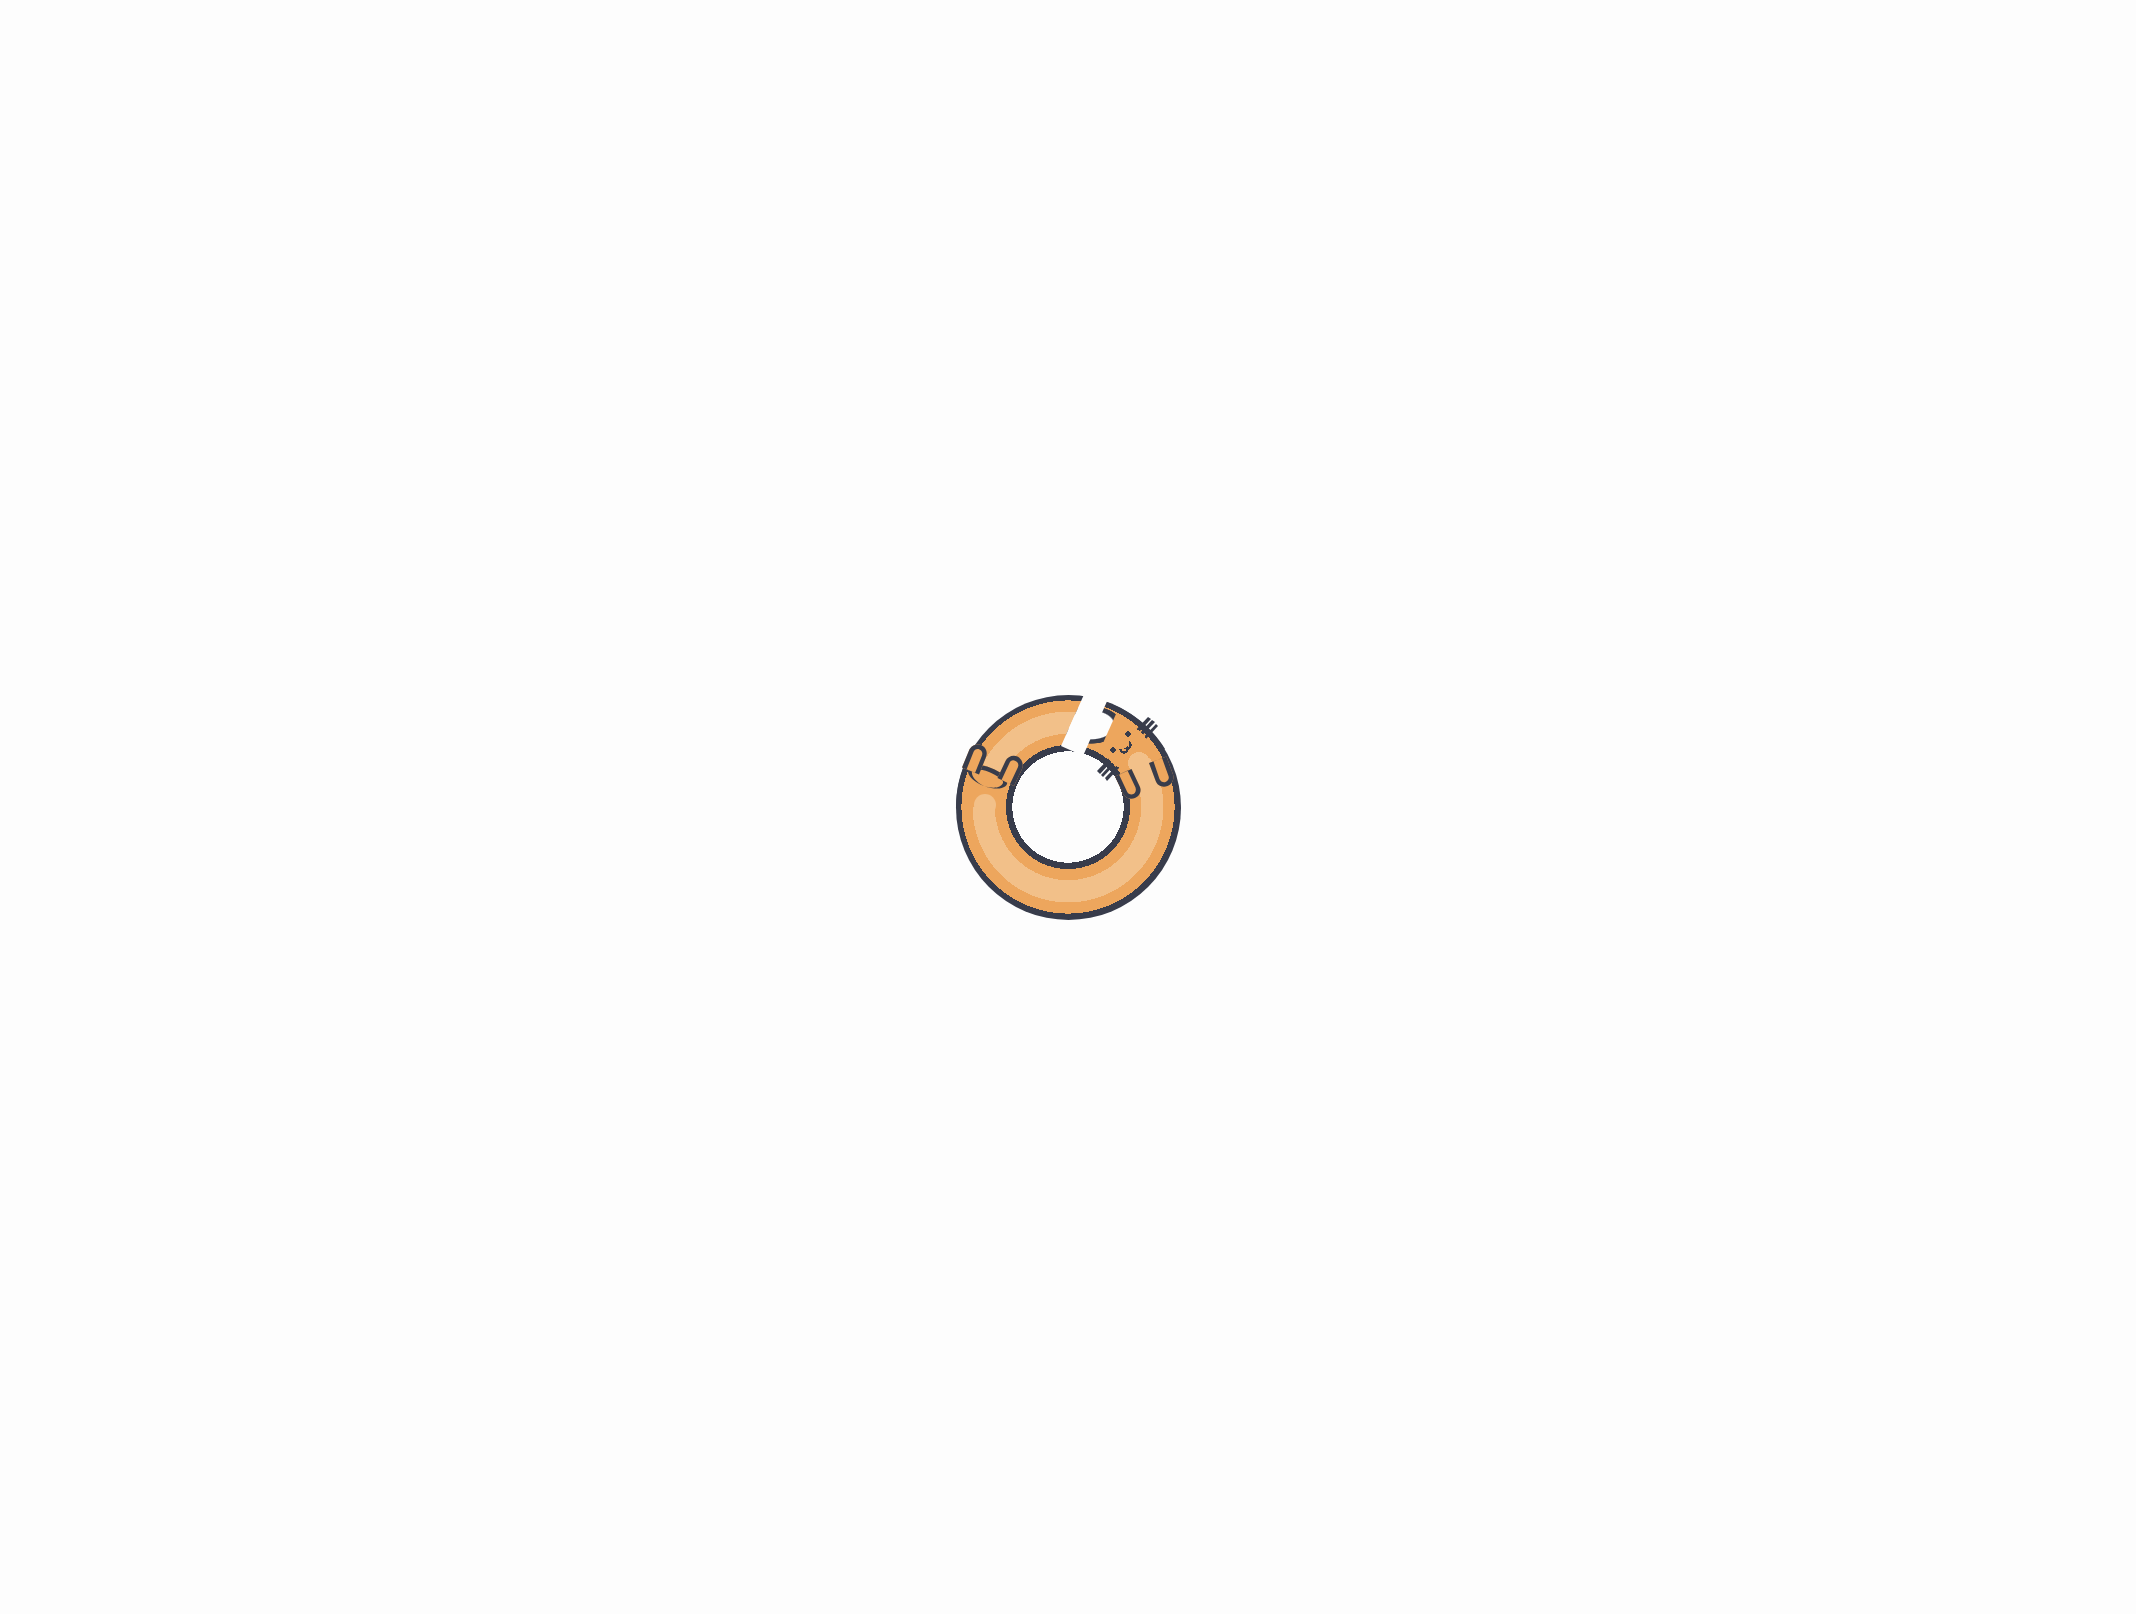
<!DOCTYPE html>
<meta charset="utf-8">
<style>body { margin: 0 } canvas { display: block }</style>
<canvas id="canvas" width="2136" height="1614"></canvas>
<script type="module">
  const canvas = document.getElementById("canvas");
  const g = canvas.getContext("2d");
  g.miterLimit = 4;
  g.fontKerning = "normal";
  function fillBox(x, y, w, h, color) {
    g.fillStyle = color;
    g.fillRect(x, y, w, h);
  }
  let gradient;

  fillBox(0, 0, 2136, 1614, "#FDFDFD");
  gradient = g.createRadialGradient(1068, 807, 0, 1068, 807, 159);
  gradient.addColorStop(0, "rgba(0, 0, 0, 0)");
  gradient.addColorStop(0.35, "rgba(56, 60, 75, 0)");
  gradient.addColorStop(0.35, "#383C4B");
  gradient.addColorStop(0.39, "#383C4B");
  gradient.addColorStop(0.39, "#EDA65D");
  gradient.addColorStop(0.46, "#EDA65D");
  gradient.addColorStop(0.46, "#F2C089");
  gradient.addColorStop(0.6, "#F2C089");
  gradient.addColorStop(0.6, "#EDA65D");
  gradient.addColorStop(0.67, "#EDA65D");
  gradient.addColorStop(0.67, "#383C4B");
  gradient.addColorStop(1, "#383C4B");
  g.fillStyle = gradient;
  g.beginPath();
  g.arc(1068.5, 807.5, 112.5, 0, Math.PI * 2);
  g.fill();
  gradient = g.createRadialGradient(1068, 807, 0, 1068, 807, 159);
  gradient.addColorStop(0, "rgba(0, 0, 0, 0)");
  gradient.addColorStop(0.35, "rgba(56, 60, 75, 0)");
  gradient.addColorStop(0.35, "#383C4B");
  gradient.addColorStop(0.39, "#383C4B");
  gradient.addColorStop(0.39, "#EDA65D");
  gradient.addColorStop(0.67, "#EDA65D");
  gradient.addColorStop(0.67, "#383C4B");
  gradient.addColorStop(1, "#383C4B");
  g.fillStyle = gradient;
  g.beginPath();
  g.moveTo(1165, 749);
  g.lineTo(1068, 807);
  g.lineTo(1103, 701);
  g.bezierCurveTo(1129, 709, 1151, 726, 1165, 749);
  g.closePath();
  g.fill();
  g.fillStyle = "#383C4B";
  g.beginPath();
  g.moveTo(1097, 771);
  g.lineTo(1148, 717);
  g.lineTo(1151, 719);
  g.lineTo(1100, 774);
  g.closePath();
  g.fill();
  g.beginPath();
  g.moveTo(1101, 775);
  g.lineTo(1152, 720);
  g.lineTo(1155, 722);
  g.lineTo(1103, 777);
  g.lineTo(1102, 776);
  g.closePath();
  g.fill();
  g.beginPath();
  g.moveTo(1105, 778);
  g.lineTo(1156, 724);
  g.lineTo(1158, 726);
  g.lineTo(1107, 781);
  g.closePath();
  g.fill();
  gradient = g.createRadialGradient(1127, 748, 0, 1127, 748, 47);
  gradient.addColorStop(0.45, "#EDA65D");
  gradient.addColorStop(0.45, "rgba(237, 166, 93, 0)");
  g.fillStyle = gradient;
  g.beginPath();
  g.moveTo(1102, 776);
  g.lineTo(1083, 758);
  g.lineTo(1134, 703);
  g.lineTo(1173, 740);
  g.lineTo(1122, 795);
  g.closePath();
  g.fill();
  gradient = g.createRadialGradient(1127, 745, 0, 1127, 745, 47);
  gradient.addColorStop(0.05, "rgba(56, 60, 75, 0)");
  gradient.addColorStop(0.05, "#383C4B");
  gradient.addColorStop(0.1, "#383C4B");
  gradient.addColorStop(0.1, "rgba(56, 60, 75, 0)");
  g.fillStyle = gradient;
  g.beginPath();
  g.moveTo(1172, 738);
  g.lineTo(1122, 791);
  g.lineTo(1084, 756);
  g.lineTo(1134, 703);
  g.closePath();
  g.fill();
  gradient = g.createRadialGradient(1124, 749, 0, 1124, 749, 47);
  gradient.addColorStop(0.05, "rgba(56, 60, 75, 0)");
  gradient.addColorStop(0.05, "#383C4B");
  gradient.addColorStop(0.1, "#383C4B");
  gradient.addColorStop(0.1, "rgba(56, 60, 75, 0)");
  g.fillStyle = gradient;
  g.beginPath();
  g.moveTo(1083, 758);
  g.lineTo(1132, 705);
  g.lineTo(1170, 740);
  g.lineTo(1121, 793);
  g.closePath();
  g.fill();
  gradient = g.createRadialGradient(1121, 984.48, 0, 1121, 984.48, 53);
  gradient.addColorStop(0, "#EDA65D");
  gradient.addColorStop(0.15, "#EDA65D");
  gradient.addColorStop(0.15, "rgba(237, 166, 93, 0)");
  g.fillStyle = gradient;
  g.beginPath();
  g.moveTo(1083, 758);
  g.lineTo(1134, 703);
  g.lineTo(1168, 735);
  g.lineTo(1116, 789);
  g.lineTo(1112, 785);
  g.closePath();
  g.save();
  g.clip();
  g.scale(1, 40 / 53);
  g.fillRect(0, 0, 2136, 2139);
  g.restore();
  gradient = g.createRadialGradient(1113, 750, 0, 1113, 750, 47);
  gradient.addColorStop(0, "#383C4B");
  gradient.addColorStop(0.06, "#383C4B");
  gradient.addColorStop(0.06, "rgba(56, 60, 75, 0)");
  g.fillStyle = gradient;
  g.beginPath();
  g.moveTo(1083, 758);
  g.lineTo(1116, 789);
  g.lineTo(1159, 742);
  g.lineTo(1126, 712);
  g.closePath();
  g.fill();
  gradient = g.createRadialGradient(1128, 734, 0, 1128, 734, 47);
  gradient.addColorStop(0, "#383C4B");
  gradient.addColorStop(0.06, "#383C4B");
  gradient.addColorStop(0.06, "rgba(56, 60, 75, 0)");
  g.fillStyle = gradient;
  g.beginPath();
  g.moveTo(1167, 734);
  g.lineTo(1123, 781);
  g.lineTo(1090, 750);
  g.lineTo(1134, 703);
  g.closePath();
  g.fill();
  gradient = g.createRadialGradient(1139, 763, 0, 1139, 763, 47);
  gradient.addColorStop(0, "#F2C089");
  gradient.addColorStop(0.23, "#F2C089");
  gradient.addColorStop(0.23, "rgba(242, 192, 137, 0)");
  g.fillStyle = gradient;
  g.beginPath();
  g.moveTo(1173, 743);
  g.lineTo(1124, 796);
  g.lineTo(1095, 769);
  g.lineTo(1144, 716);
  g.closePath();
  g.fill();
  gradient = g.createRadialGradient(1091, 1181.48, 0, 1091, 1181.48, 44);
  gradient.addColorStop(0.51, "#FDFDFD");
  gradient.addColorStop(0.55, "#383C4B");
  gradient.addColorStop(0.68, "#383C4B");
  gradient.addColorStop(0.7, "rgba(56, 60, 75, 0)");
  g.fillStyle = gradient;
  g.beginPath();
  g.moveTo(1061, 746);
  g.lineTo(1086, 690);
  g.lineTo(1120, 705);
  g.lineTo(1095, 761);
  g.closePath();
  g.save();
  g.clip();
  g.scale(1, 27 / 44);
  g.fillRect(0, 0, 2136, 2631);
  g.restore();
  g.fillStyle = "#FDFDFD";
  g.beginPath();
  g.moveTo(1061, 746);
  g.lineTo(1086, 690);
  g.lineTo(1108, 699);
  g.lineTo(1083, 756);
  g.lineTo(1079, 754);
  g.closePath();
  g.fill();
  gradient = g.createRadialGradient(1068, 807, 0, 1068, 807, 159);
  gradient.addColorStop(0, "rgba(0, 0, 0, 0)");
  gradient.addColorStop(0.35, "rgba(56, 60, 75, 0)");
  gradient.addColorStop(0.35, "#383C4B");
  gradient.addColorStop(0.39, "#383C4B");
  gradient.addColorStop(0.39, "#EDA65D");
  gradient.addColorStop(0.67, "#EDA65D");
  gradient.addColorStop(0.67, "#383C4B");
  gradient.addColorStop(1, "#383C4B");
  g.fillStyle = gradient;
  g.beginPath();
  g.moveTo(1068, 807);
  g.lineTo(956, 807);
  g.bezierCurveTo(956, 789, 960, 772, 968, 757);
  g.closePath();
  g.fill();
  g.fillStyle = "#EDA65D";
  g.beginPath();
  g.moveTo(991, 768);
  g.bezierCurveTo(1017, 778, 1010, 795, 984, 786);
  g.bezierCurveTo(959, 776, 965, 758, 991, 768);
  g.closePath();
  g.fill();
  g.fillStyle = "#383C4B";
  g.beginPath();
  g.moveTo(991, 768);
  g.bezierCurveTo(1017, 778, 1010, 795, 984, 786);
  g.bezierCurveTo(959, 776, 965, 758, 991, 768);
  g.closePath();
  g.moveTo(989, 772);
  g.bezierCurveTo(998, 776, 1004, 780, 1003, 783);
  g.bezierCurveTo(1001, 788, 993, 789, 984, 786);
  g.bezierCurveTo(976, 782, 971, 776, 972, 771);
  g.bezierCurveTo(973, 769, 981, 769, 989, 772);
  g.closePath();
  g.fill("evenodd");
  g.fillStyle = "#EDA65D";
  g.beginPath();
  g.moveTo(981, 745);
  g.bezierCurveTo(986, 747, 988, 752.5, 986, 757);
  g.lineTo(979, 774.5);
  g.lineTo(962, 767.5);
  g.lineTo(969, 750.5);
  g.bezierCurveTo(971, 745.5, 976.5, 743.5, 981, 745);
  g.closePath();
  g.fill();
  g.fillStyle = "#383C4B";
  g.beginPath();
  g.moveTo(981, 745);
  g.bezierCurveTo(986, 747, 988, 752.5, 986, 757);
  g.lineTo(979, 774.5);
  g.lineTo(962, 767.5);
  g.lineTo(969, 750.5);
  g.bezierCurveTo(971, 745.5, 976.5, 743.5, 981, 745);
  g.closePath();
  g.moveTo(979.5, 749.5);
  g.bezierCurveTo(982, 750.5, 983, 753, 982, 755.5);
  g.lineTo(975, 773);
  g.lineTo(966.5, 769.5);
  g.lineTo(973.5, 752);
  g.bezierCurveTo(974.5, 749.5, 977, 748.5, 979.5, 749.5);
  g.closePath();
  g.fill("evenodd");
  g.fillStyle = "#EDA65D";
  g.beginPath();
  g.moveTo(1017.5, 756.5);
  g.bezierCurveTo(1022, 759, 1024, 764.5, 1022, 769);
  g.lineTo(1014, 786);
  g.lineTo(997.5, 778);
  g.lineTo(1005.5, 761);
  g.bezierCurveTo(1007.5, 756.5, 1013, 754.5, 1017.5, 756.5);
  g.closePath();
  g.fill();
  g.fillStyle = "#383C4B";
  g.beginPath();
  g.moveTo(1017.5, 756.5);
  g.bezierCurveTo(1022, 759, 1024, 764.5, 1022, 769);
  g.lineTo(1014, 786);
  g.lineTo(997.5, 778);
  g.lineTo(1005.5, 761);
  g.bezierCurveTo(1007.5, 756.5, 1013, 754.5, 1017.5, 756.5);
  g.closePath();
  g.moveTo(1015.5, 761);
  g.bezierCurveTo(1018, 762, 1019, 764.5, 1018, 767);
  g.lineTo(1010, 784);
  g.lineTo(1001.5, 780);
  g.lineTo(1009.5, 763);
  g.bezierCurveTo(1010.5, 760.5, 1013, 759.5, 1015.5, 761);
  g.closePath();
  g.fill("evenodd");
  g.fillStyle = "#F2C089";
  g.beginPath();
  g.arc(985, 805, 11, 0, Math.PI * 2);
  g.fill();
  g.fillStyle = "#EDA65D";
  g.beginPath();
  g.moveTo(1115, 776.5);
  g.lineTo(1131.5, 769);
  g.lineTo(1139.5, 786);
  g.bezierCurveTo(1142, 790.5, 1140, 796, 1135, 798);
  g.bezierCurveTo(1130.5, 800, 1125, 798, 1123, 793.5);
  g.closePath();
  g.fill();
  g.fillStyle = "#383C4B";
  g.beginPath();
  g.moveTo(1115, 776.5);
  g.lineTo(1131.5, 769);
  g.lineTo(1139.5, 786);
  g.bezierCurveTo(1142, 790.5, 1140, 796, 1135, 798);
  g.bezierCurveTo(1130.5, 800, 1125, 798, 1123, 793.5);
  g.closePath();
  g.moveTo(1119, 774.5);
  g.lineTo(1127.5, 770.5);
  g.lineTo(1135.5, 787.5);
  g.bezierCurveTo(1136.5, 790, 1135.5, 793, 1133.5, 794);
  g.bezierCurveTo(1131, 795, 1128, 794, 1127, 791.5);
  g.closePath();
  g.fill("evenodd");
  g.fillStyle = "#EDA65D";
  g.beginPath();
  g.moveTo(1149, 763);
  g.lineTo(1166.5, 756.5);
  g.lineTo(1173, 774.5);
  g.bezierCurveTo(1174.5, 779, 1172, 784.5, 1167.5, 786);
  g.bezierCurveTo(1162.5, 788, 1157, 785.5, 1155.5, 780.5);
  g.closePath();
  g.fill();
  g.fillStyle = "#383C4B";
  g.beginPath();
  g.moveTo(1149, 763);
  g.lineTo(1166.5, 756.5);
  g.lineTo(1173, 774.5);
  g.bezierCurveTo(1174.5, 779, 1172, 784.5, 1167.5, 786);
  g.bezierCurveTo(1162.5, 788, 1157, 785.5, 1155.5, 780.5);
  g.closePath();
  g.moveTo(1153.5, 761.5);
  g.lineTo(1162, 758);
  g.lineTo(1168.5, 776);
  g.bezierCurveTo(1169.5, 778.5, 1168, 781, 1165.5, 782);
  g.bezierCurveTo(1163.5, 783, 1160.5, 781.5, 1159.5, 779);
  g.closePath();
  g.fill("evenodd");
</script>
